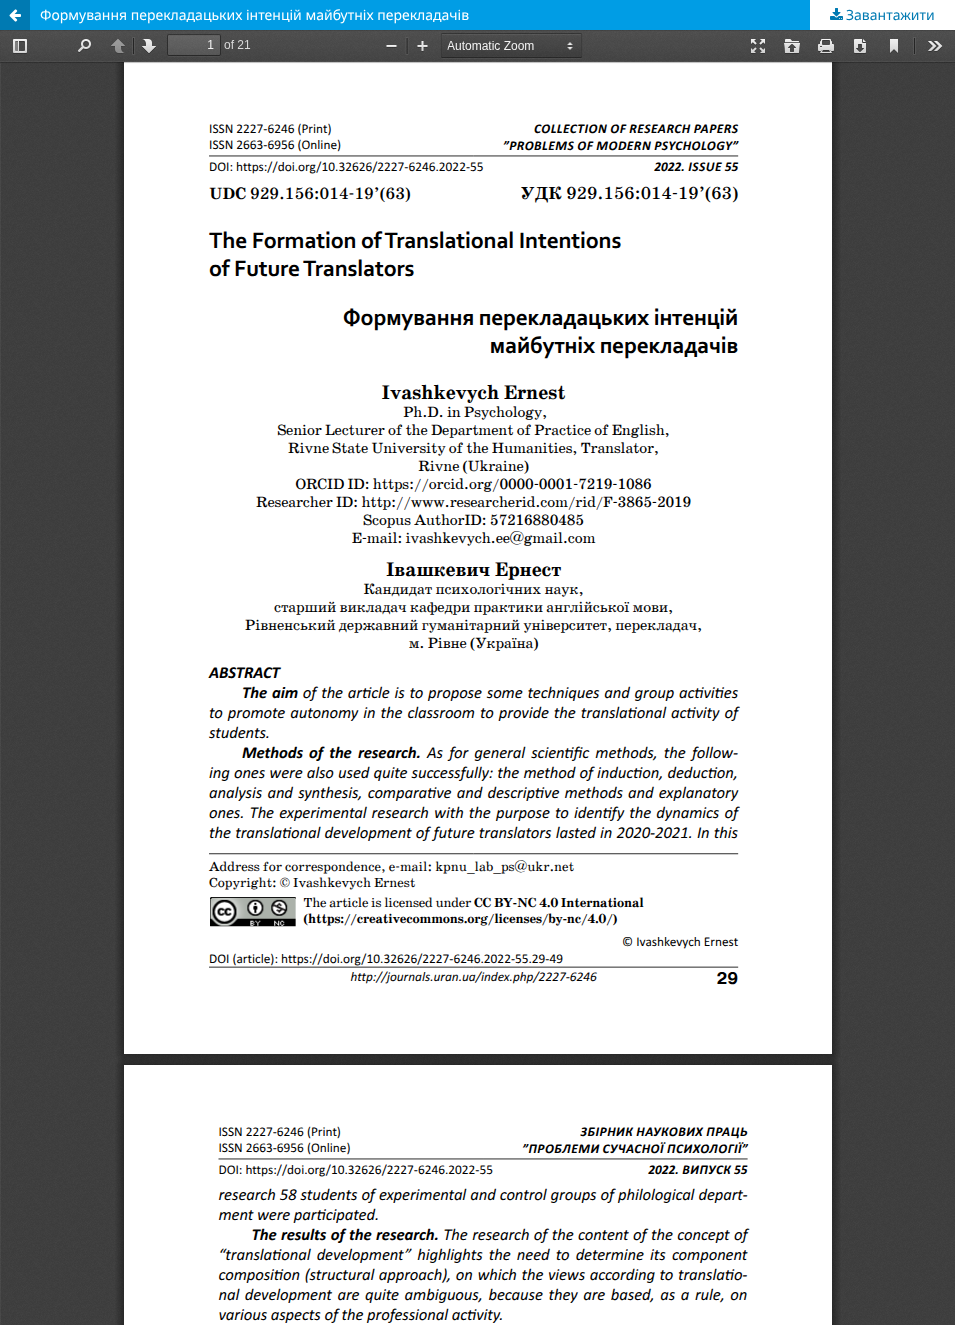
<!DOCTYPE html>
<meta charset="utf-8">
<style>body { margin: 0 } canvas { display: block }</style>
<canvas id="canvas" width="955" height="1325"></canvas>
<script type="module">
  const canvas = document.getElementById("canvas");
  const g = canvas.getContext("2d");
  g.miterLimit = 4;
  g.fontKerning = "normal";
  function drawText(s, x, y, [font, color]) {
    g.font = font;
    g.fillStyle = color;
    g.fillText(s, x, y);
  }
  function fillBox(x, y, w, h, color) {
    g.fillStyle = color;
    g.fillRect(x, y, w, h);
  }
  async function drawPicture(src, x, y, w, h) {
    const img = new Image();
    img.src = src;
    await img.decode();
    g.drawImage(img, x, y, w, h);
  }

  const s1 = ["14px Noto Sans", "#FFFFFF"];
  const s2 = ["14px Noto Sans", "#007AB2"];

  fillBox(0, 0, 955, 1325, "#FFFFFF");
  fillBox(30, 0, 780, 30, "#009DE5");
  fillBox(0, 0, 30, 30, "#007AB2");
  await drawPicture("pic1.png", 9, 9, 12, 13);
  drawText("Формування перекладацьких інтенцій майбутніх перекладачів", 40, 20, s1);
  await drawPicture("pic2.png", 830, 8, 13, 12);
  drawText("Завантажити", 846, 20, s2);
  await drawPicture("pic3.png", 0, 30, 955, 1295);
</script>
